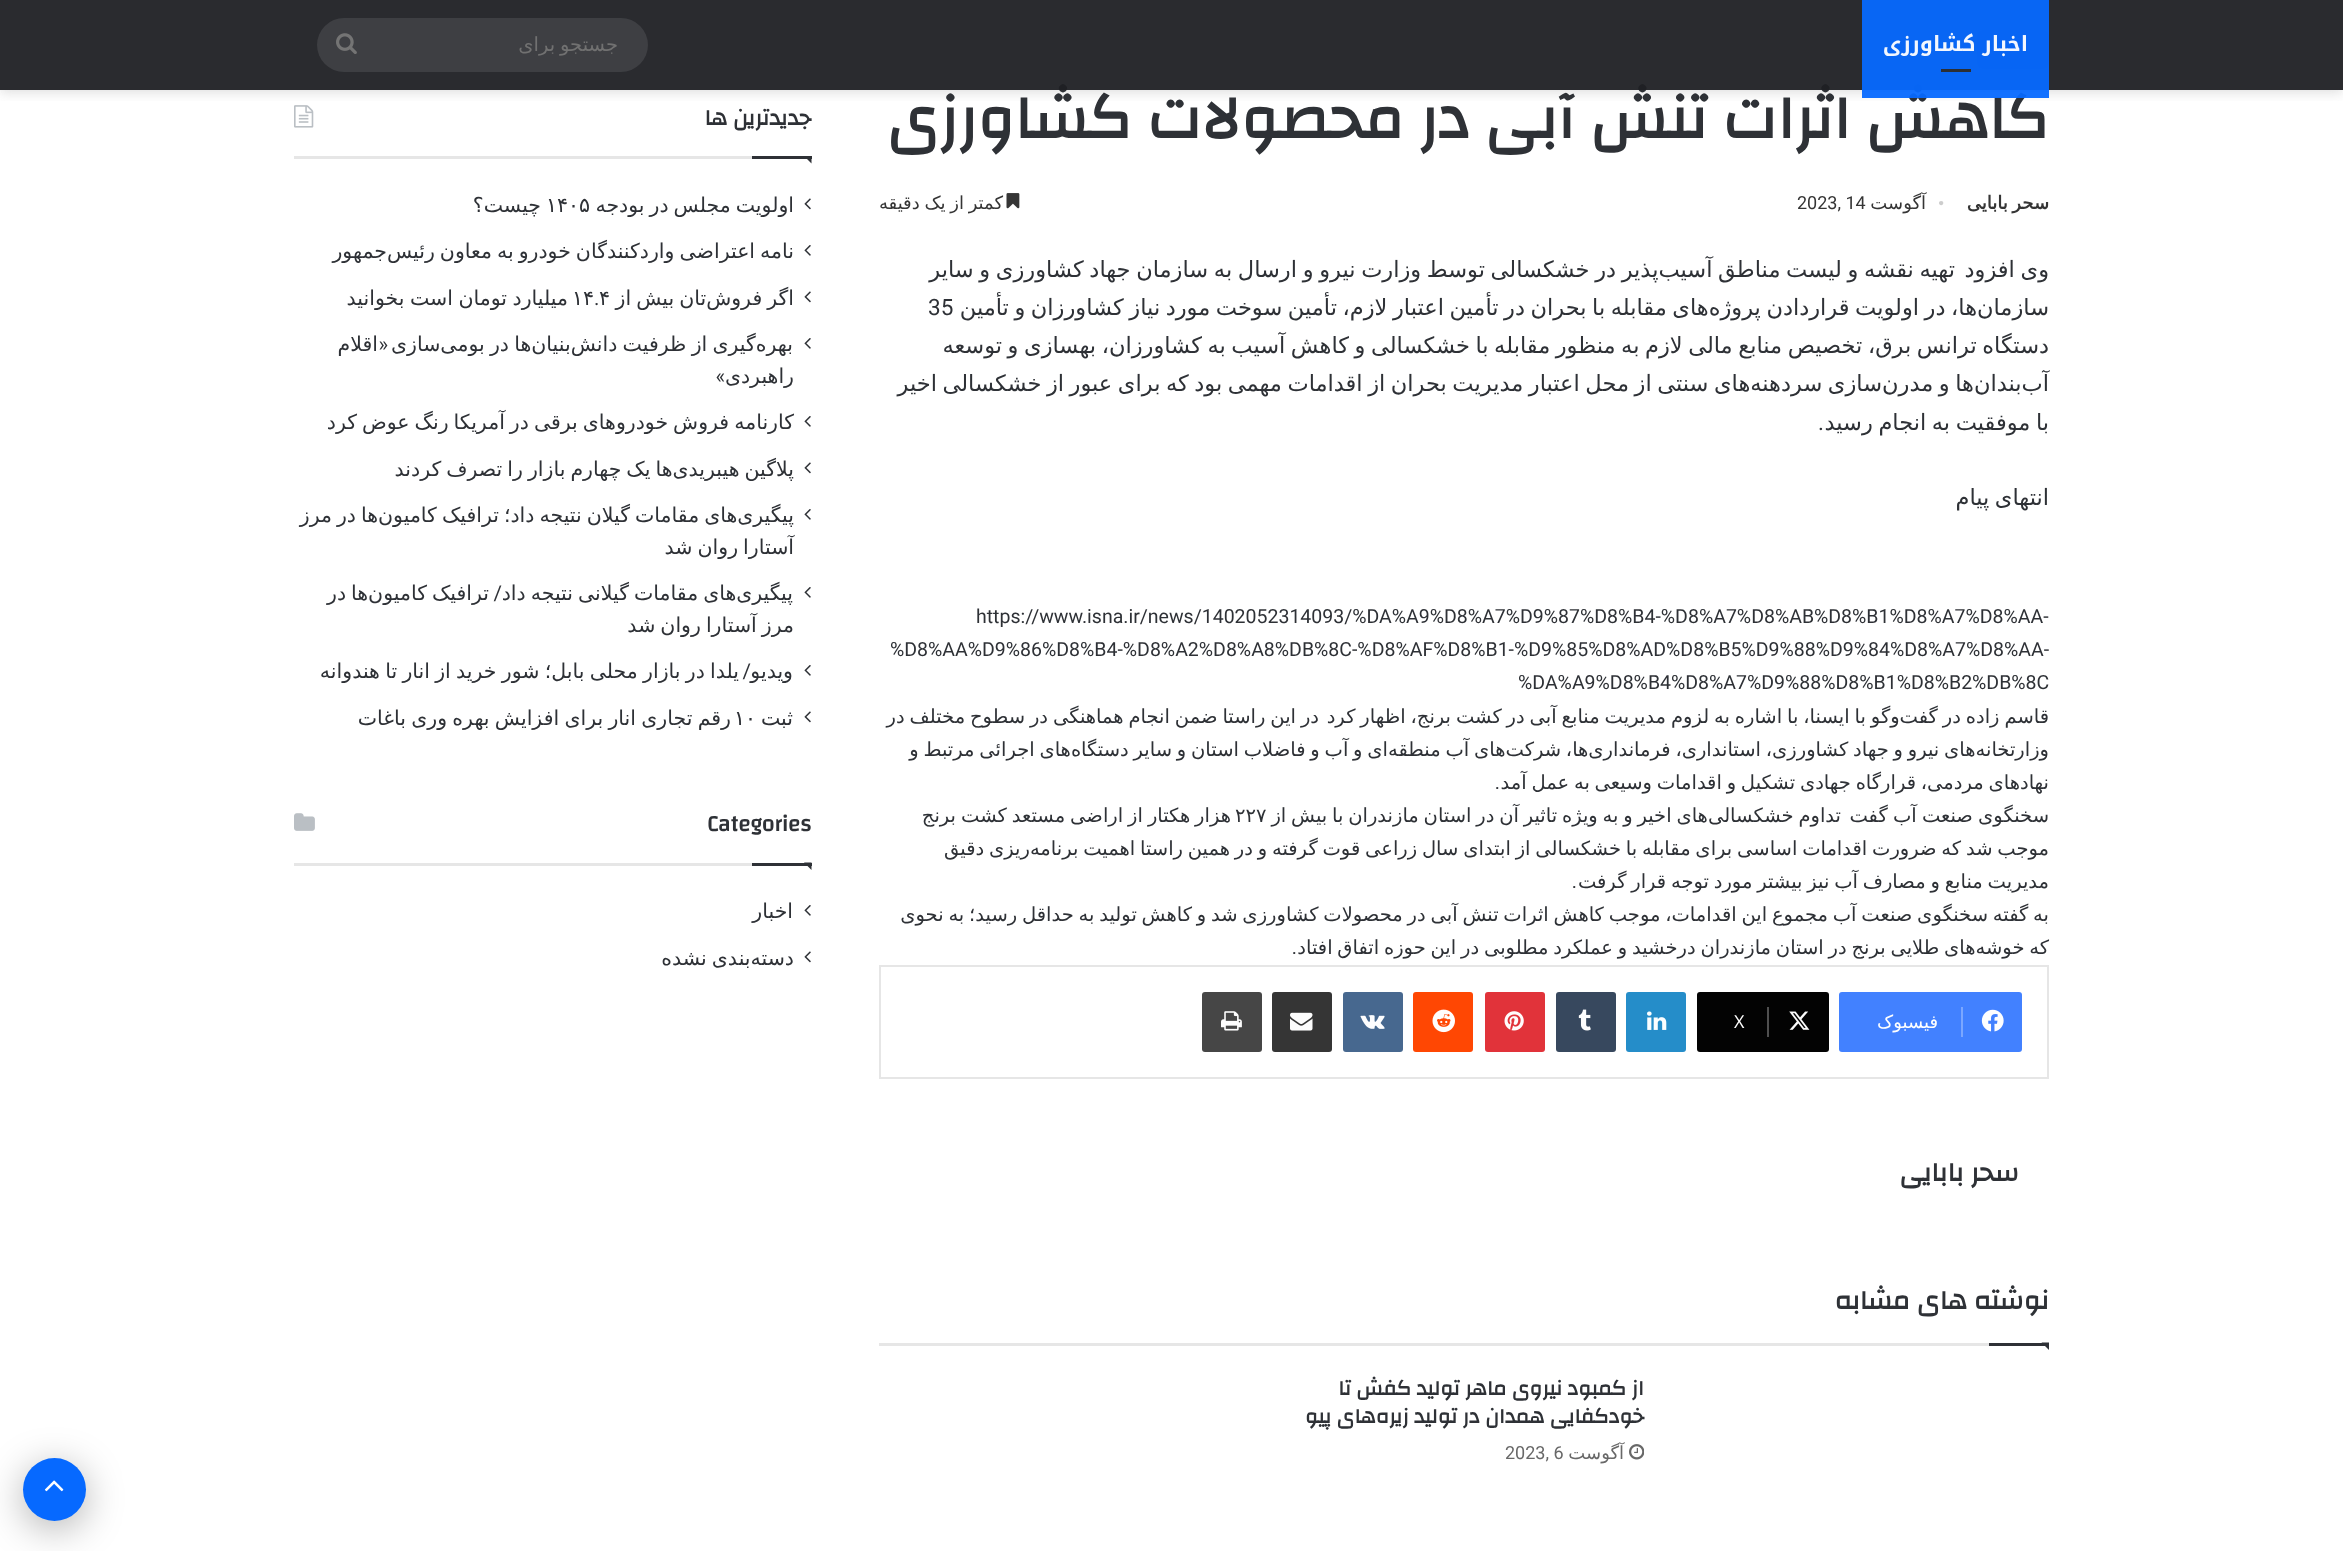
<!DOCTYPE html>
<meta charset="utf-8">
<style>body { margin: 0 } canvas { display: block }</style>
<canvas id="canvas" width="2343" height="1551"></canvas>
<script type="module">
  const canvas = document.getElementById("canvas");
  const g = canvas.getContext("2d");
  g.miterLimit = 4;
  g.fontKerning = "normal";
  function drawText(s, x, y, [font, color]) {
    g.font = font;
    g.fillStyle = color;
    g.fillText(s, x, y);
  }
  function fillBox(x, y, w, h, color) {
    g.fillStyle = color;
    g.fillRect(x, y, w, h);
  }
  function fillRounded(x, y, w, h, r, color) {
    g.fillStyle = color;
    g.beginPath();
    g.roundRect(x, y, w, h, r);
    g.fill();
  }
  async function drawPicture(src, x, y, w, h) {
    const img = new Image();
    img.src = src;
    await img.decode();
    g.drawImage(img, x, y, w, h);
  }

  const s1 = ["bold 61.5px Changa", "#2E3136"];
  const s2 = ["bold 21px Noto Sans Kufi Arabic", "#F3F7FE"];
  const s3 = ["19.5px DejaVu Sans", "#717171"];
  const s4 = ["bold 18px DejaVu Sans", "#353535"];
  const s5 = ["18px Liberation Serif", "#CDCDCD"];
  const s6 = ["18px DejaVu Sans", "#353535"];
  const s7 = ["18px Roboto", "#353535"];
  const s8 = ["22.5px DejaVu Sans", "#2E3136"];
  const s9 = ["22.5px Roboto", "#2E3136"];
  const s10 = ["19.5px Roboto", "#2E3136"];
  const s11 = ["19.5px DejaVu Sans", "#2E3136"];
  const s12 = ["18px DejaVu Sans", "#FFFFFF"];
  const s13 = ["18px Open Sans", "#FFFFFF"];
  const s14 = ["bold 27px Changa", "#2E3136"];
  const s15 = ["bold 21px Changa", "#2E3136"];
  const s16 = ["18px DejaVu Sans", "#686868"];
  const s17 = ["18px Roboto", "#686868"];
  const s18 = ["bold 22.5px Changa", "#2E3136"];
  const s19 = ["20.5px DejaVu Sans", "#2E3136"];
  const s20 = ["20.5px Roboto", "#2E3136"];

  fillBox(0, 0, 2343, 1551, "#FFFFFF");
  fillRounded(1977, 30, 72, 39, 6, "#086BFF");
  await drawPicture("pic13.png", 294, 105, 20, 23);
  g.save();
  g.beginPath();
  g.rect(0, 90, 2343, 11);
  g.clip();
  g.fillStyle = "rgba(99, 99, 99, 0.2)";
  g.filter = "blur(6px)";
  g.beginPath();
  g.rect(0, 3, 2343, 90);
  g.fill();
  g.filter = "none";
  g.restore();
  g.direction = "rtl";
  drawText("کاهش اثرات تنش آبی در محصولات کشاورزی", 2049, 138, s1);
  fillBox(0, 0, 2343, 90, "rgba(31, 32, 36, 0.95)");
  fillBox(1862, 90, 187, 8, "rgba(6, 105, 255, 0.95)");
  fillBox(1862, 0, 187, 90, "rgba(6, 105, 255, 0.95)");
  drawText("اخبار کشاورزی", 2028, 51, s2);
  fillBox(1941, 69, 30, 3, "#2C2F34");
  fillRounded(317, 18, 331, 54, 27, "#3E3F43");
  g.wordSpacing = "-1.4px";
  drawText("جستجو برای", 618, 51, s3);
  await drawPicture("pic1.png", 336, 33, 21, 21);
  g.wordSpacing = "-1px";
  drawText("سحر بابایی", 2049, 209, s4);
  g.wordSpacing = "0px";
  g.direction = "ltr";
  drawText("•", 1938, 209, s5);
  g.direction = "rtl";
  drawText("آگوست", 1926, 209, s6);
  g.direction = "ltr";
  drawText("2023, 14", 1797, 209, s7);
  await drawPicture("pic2.png", 1006, 193, 14, 16);
  g.wordSpacing = "-1px";
  g.direction = "rtl";
  drawText("کمتر از یک دقیقه", 1003, 209, s6);
  g.wordSpacing = "-1.5px";
  drawText("تهیه نقشه و لیست مناطق آسیب‌پذیر در خشکسالی توسط وزارت نیرو و ارسال به سازمان جهاد کشاورزی و سایر", 1955, 277, s8);
  drawText("وی افزود", 2049, 277, s8);
  g.wordSpacing = "-1.6px";
  drawText("سازمان‌ها، در اولویت قراردادن پروژه‌های مقابله با بحران در تأمین اعتبار لازم، تأمین سوخت مورد نیاز کشاورزان و تأمین", 2049, 315, s8);
  g.wordSpacing = "0px";
  g.direction = "ltr";
  drawText("35", 928, 315, s9);
  g.wordSpacing = "-1.6px";
  g.direction = "rtl";
  drawText("دستگاه ترانس برق، تخصیص منابع مالی لازم به منظور مقابله با خشکسالی و کاهش آسیب به کشاورزان، بهسازی و توسعه", 2049, 353, s8);
  drawText("آب‌بندان‌ها و مدرن‌سازی سردهنه‌های سنتی از محل اعتبار مدیریت بحران از اقدامات مهمی بود که برای عبور از خشکسالی اخیر", 2049, 391, s8);
  drawText("با موفقیت به انجام رسید", 2049, 430, s8);
  g.wordSpacing = "0px";
  drawText(".", 1824, 430, s9);
  g.wordSpacing = "-1.6px";
  drawText("انتهای پیام", 2049, 505, s8);
  g.wordSpacing = "0px";
  g.direction = "ltr";
  drawText("https://www.isna.ir/news/1402052314093/%DA%A9%D8%A7%D9%87%D8%B4-%D8%A7%D8%AB%D8%B1%D8%A7%D8%AA-", 976, 623, s10);
  drawText("%D8%AA%D9%86%D8%B4-%D8%A2%D8%A8%DB%8C-%D8%AF%D8%B1-%D9%85%D8%AD%D8%B5%D9%88%D9%84%D8%A7%D8%AA-", 890, 656, s10);
  drawText("%DA%A9%D8%B4%D8%A7%D9%88%D8%B1%D8%B2%DB%8C", 1518, 689, s10);
  g.wordSpacing = "-1.3px";
  g.direction = "rtl";
  drawText("قاسم زاده در گفت‌وگو با ایسنا، با اشاره به لزوم مدیریت منابع آبی در کشت برنج، اظهار کرد", 2049, 723, s11);
  drawText("در این راستا ضمن انجام هماهنگی در سطوح مختلف در", 1319, 723, s11);
  g.wordSpacing = "-1.4px";
  drawText("وزارتخانه‌های نیرو و جهاد کشاورزی، استانداری، فرمانداری‌ها، شرکت‌های آب منطقه‌ای و آب و فاضلاب استان و سایر دستگاه‌های اجرائی مرتبط و", 2049, 756, s11);
  drawText("نهادهای مردمی، قرارگاه‌ جهادی تشکیل و اقدامات وسیعی به عمل آمد", 2049, 789, s11);
  g.wordSpacing = "0px";
  drawText(".", 1500, 789, s10);
  g.wordSpacing = "-1px";
  drawText("سخنگوی صنعت آب گفت", 2049, 822, s11);
  g.wordSpacing = "-1.4px";
  drawText("تداوم خشکسالی‌های اخیر و به ویژه تاثیر آن در استان مازندران با بیش از", 1841, 822, s11);
  g.wordSpacing = "-1.25px";
  drawText("هزار هکتار از اراضی مستعد کشت برنج", 1231, 822, s11);
  g.wordSpacing = "0px";
  g.direction = "ltr";
  drawText("۲۲۷", 1235, 822, s11);
  g.wordSpacing = "-1.4px";
  g.direction = "rtl";
  drawText("موجب شد که ضرورت اقدامات اساسی برای مقابله با خشکسالی از ابتدای سال زراعی قوت گرفته و در همین راستا اهمیت برنامه‌ریزی دقیق", 2049, 855, s11);
  drawText("مدیریت منابع و مصارف آب نیز بیشتر مورد توجه قرار گرفت", 2049, 888, s11);
  g.wordSpacing = "0px";
  drawText(".", 1577, 888, s10);
  g.wordSpacing = "-1.4px";
  drawText("به گفته سخنگوی صنعت آب مجموع این اقدامات، موجب کاهش اثرات تنش آبی در محصولات کشاورزی شد و کاهش تولید به حداقل رسید؛ به نحوی", 2049, 921, s11);
  drawText("که خوشه‌های طلایی برنج در استان‌ مازندران درخشید و عملکرد مطلوبی در این حوزه اتفاق افتاد", 2049, 954, s11);
  g.wordSpacing = "0px";
  drawText(".", 1297, 954, s10);
  g.strokeStyle = "#E6E6E6";
  g.lineWidth = 2;
  g.strokeRect(880, 966, 1168, 112);
  fillRounded(1839, 992, 183, 60, 3, "#4281FF");
  await drawPicture("pic3.png", 1981, 1009, 23, 23);
  fillBox(1961, 1007, 2, 30, "#7BA7FF");
  drawText("فیسبوک", 1938, 1028, s12);
  fillRounded(1697, 992, 132, 60, 3, "#030303");
  await drawPicture("pic4.png", 1789, 1011, 21, 19);
  fillBox(1767, 1007, 2, 30, "#4F4F4F");
  g.direction = "ltr";
  drawText("X", 1734, 1028, s13);
  fillRounded(1626, 992, 60, 60, 3, "#258DC9");
  await drawPicture("pic5.png", 1647, 1011, 20, 19);
  fillRounded(1556, 992, 60, 60, 3, "#37485E");
  await drawPicture("pic6.png", 1578, 1009, 13, 22);
  fillRounded(1485, 992, 60, 60, 3, "#E1333A");
  await drawPicture("pic7.png", 1504, 1011, 20, 20);
  fillRounded(1413, 992, 60, 60, 3, "#FF4703");
  await drawPicture("pic8.png", 1432, 1009, 23, 24);
  fillRounded(1343, 992, 60, 60, 3, "#47688F");
  await drawPicture("pic9.png", 1360, 1015, 25, 14);
  fillRounded(1272, 992, 60, 60, 3, "#353535");
  await drawPicture("pic10.png", 1290, 1012, 23, 19);
  fillRounded(1202, 992, 60, 60, 3, "#464646");
  await drawPicture("pic11.png", 1221, 1011, 21, 20);
  g.direction = "rtl";
  drawText("سحر بابایی", 2019, 1181, s14);
  fillBox(879, 1343, 1110, 3, "#E6E6E6");
  drawText("نوشته های مشابه", 2049, 1309, s14);
  g.beginPath();
  g.moveTo(2041.5, 1342.5);
  g.lineTo(2049, 1342.5);
  g.lineTo(2049, 1350);
  g.closePath();
  g.fill();
  fillBox(1989, 1343, 60, 3, "#2E3136");
  drawText("از کمبود نیروی ماهر تولید کفش تا", 1644, 1395, s15);
  drawText("خودکفایی همدان در تولید زیره‌های پیو", 1644, 1423, s15);
  await drawPicture("pic12.png", 1629, 1444, 15, 16);
  drawText("آگوست", 1624, 1459, s16);
  g.direction = "ltr";
  drawText("2023, 6", 1505, 1459, s17);
  fillBox(294, 156, 458, 3, "#E6E6E6");
  g.direction = "rtl";
  drawText("جدیدترین ها", 811, 125, s18);
  g.beginPath();
  g.moveTo(804, 156);
  g.lineTo(811.5, 156);
  g.lineTo(811.5, 163.5);
  g.closePath();
  g.fill();
  fillBox(752, 156, 60, 3, "#2E3136");
  await drawPicture("pic14.png", 804, 198, 7, 12);
  g.wordSpacing = "-1.5px";
  drawText("اولویت مجلس در بودجه", 794, 212, s19);
  g.wordSpacing = "0px";
  g.direction = "ltr";
  drawText("۱۴۰۵", 546, 212, s19);
  g.direction = "rtl";
  drawText("چیست؟", 541, 212, s19);
  await drawPicture("pic15.png", 804, 245, 7, 11);
  g.wordSpacing = "-1.5px";
  drawText("نامه اعتراضی واردکنندگان خودرو به معاون رئیس‌جمهور", 794, 258, s19);
  await drawPicture("pic14.png", 804, 291, 7, 12);
  drawText("اگر فروش‌تان بیش از", 794, 305, s19);
  g.wordSpacing = "0px";
  g.direction = "ltr";
  drawText("۴", 599, 305, s19);
  drawText("۱۴", 572, 305, s19);
  g.wordSpacing = "-1px";
  g.direction = "rtl";
  drawText("میلیارد تومان است بخوانید", 568, 305, s19);
  g.wordSpacing = "0px";
  g.direction = "ltr";
  drawText(".", 594, 305, s20);
  await drawPicture("pic15.png", 804, 338, 7, 11);
  g.wordSpacing = "-1.25px";
  g.direction = "rtl";
  drawText("بهره‌گیری از ظرفیت دانش‌بنیان‌ها در بومی‌سازی", 793, 351, s19);
  g.wordSpacing = "0px";
  drawText("«", 388, 351, s20);
  drawText("اقلام", 378, 351, s19);
  drawText("راهبردی", 794, 383, s19);
  drawText("»", 725, 383, s20);
  await drawPicture("pic15.png", 804, 416, 7, 11);
  g.wordSpacing = "-1.5px";
  drawText("کارنامه فروش خودروهای برقی در آمریکا رنگ عوض کرد", 794, 429, s19);
  await drawPicture("pic14.png", 804, 462, 7, 12);
  drawText("پلاگین هیبریدی‌ها یک چهارم بازار را تصرف کردند", 794, 476, s19);
  await drawPicture("pic15.png", 804, 509, 7, 11);
  drawText("پیگیری‌های مقامات گیلان نتیجه داد؛ ترافیک کامیون‌ها در مرز", 794, 522, s19);
  drawText("آستارا روان شد", 794, 554, s19);
  await drawPicture("pic15.png", 804, 587, 7, 11);
  drawText("پیگیری‌های مقامات گیلانی نتیجه داد", 793, 600, s19);
  g.wordSpacing = "0px";
  drawText("/", 502, 600, s20);
  g.wordSpacing = "-1.5px";
  drawText("ترافیک کامیون‌ها در", 489, 600, s19);
  drawText("مرز آستارا روان شد", 794, 632, s19);
  g.wordSpacing = "-1.25px";
  drawText("یلدا در بازار محلی بابل؛ شور خرید از انار تا هندوانه", 739, 678, s19);
  await drawPicture("pic15.png", 804, 665, 7, 11);
  g.wordSpacing = "0px";
  drawText("/", 751, 678, s20);
  drawText("ویدیو", 793, 678, s19);
  await drawPicture("pic14.png", 804, 711, 7, 12);
  drawText("ثبت", 793, 725, s19);
  g.wordSpacing = "-1.25px";
  drawText("رقم تجاری انار برای افزایش بهره‌ وری باغات", 731, 725, s19);
  g.wordSpacing = "0px";
  g.direction = "ltr";
  drawText("۱۰", 734, 725, s19);
  fillBox(294, 863, 458, 3, "#E6E6E6");
  drawText("Categories", 707, 831, s18);
  await drawPicture("pic16.png", 294, 813, 21, 18);
  g.beginPath();
  g.moveTo(804, 862.5);
  g.lineTo(811.5, 862.5);
  g.lineTo(811.5, 870);
  g.closePath();
  g.fill();
  fillBox(752, 863, 60, 3, "#2E3136");
  await drawPicture("pic15.png", 804, 905, 7, 11);
  g.direction = "rtl";
  drawText("اخبار", 793, 918, s19);
  await drawPicture("pic14.png", 804, 951, 7, 12);
  g.wordSpacing = "-1.5px";
  drawText("دسته‌بندی نشده", 794, 965, s19);
  g.fillStyle = "rgba(0, 0, 0, 0.3)";
  g.filter = "blur(19px)";
  g.beginPath();
  g.roundRect(23, 1466, 63, 63, 31.5);
  g.fill();
  g.filter = "none";
  g.fillStyle = "#0669FF";
  g.beginPath();
  g.arc(54.5, 1489.5, 31.5, 0, Math.PI * 2);
  g.fill();
  await drawPicture("pic17.png", 44, 1480, 20, 12);
</script>
